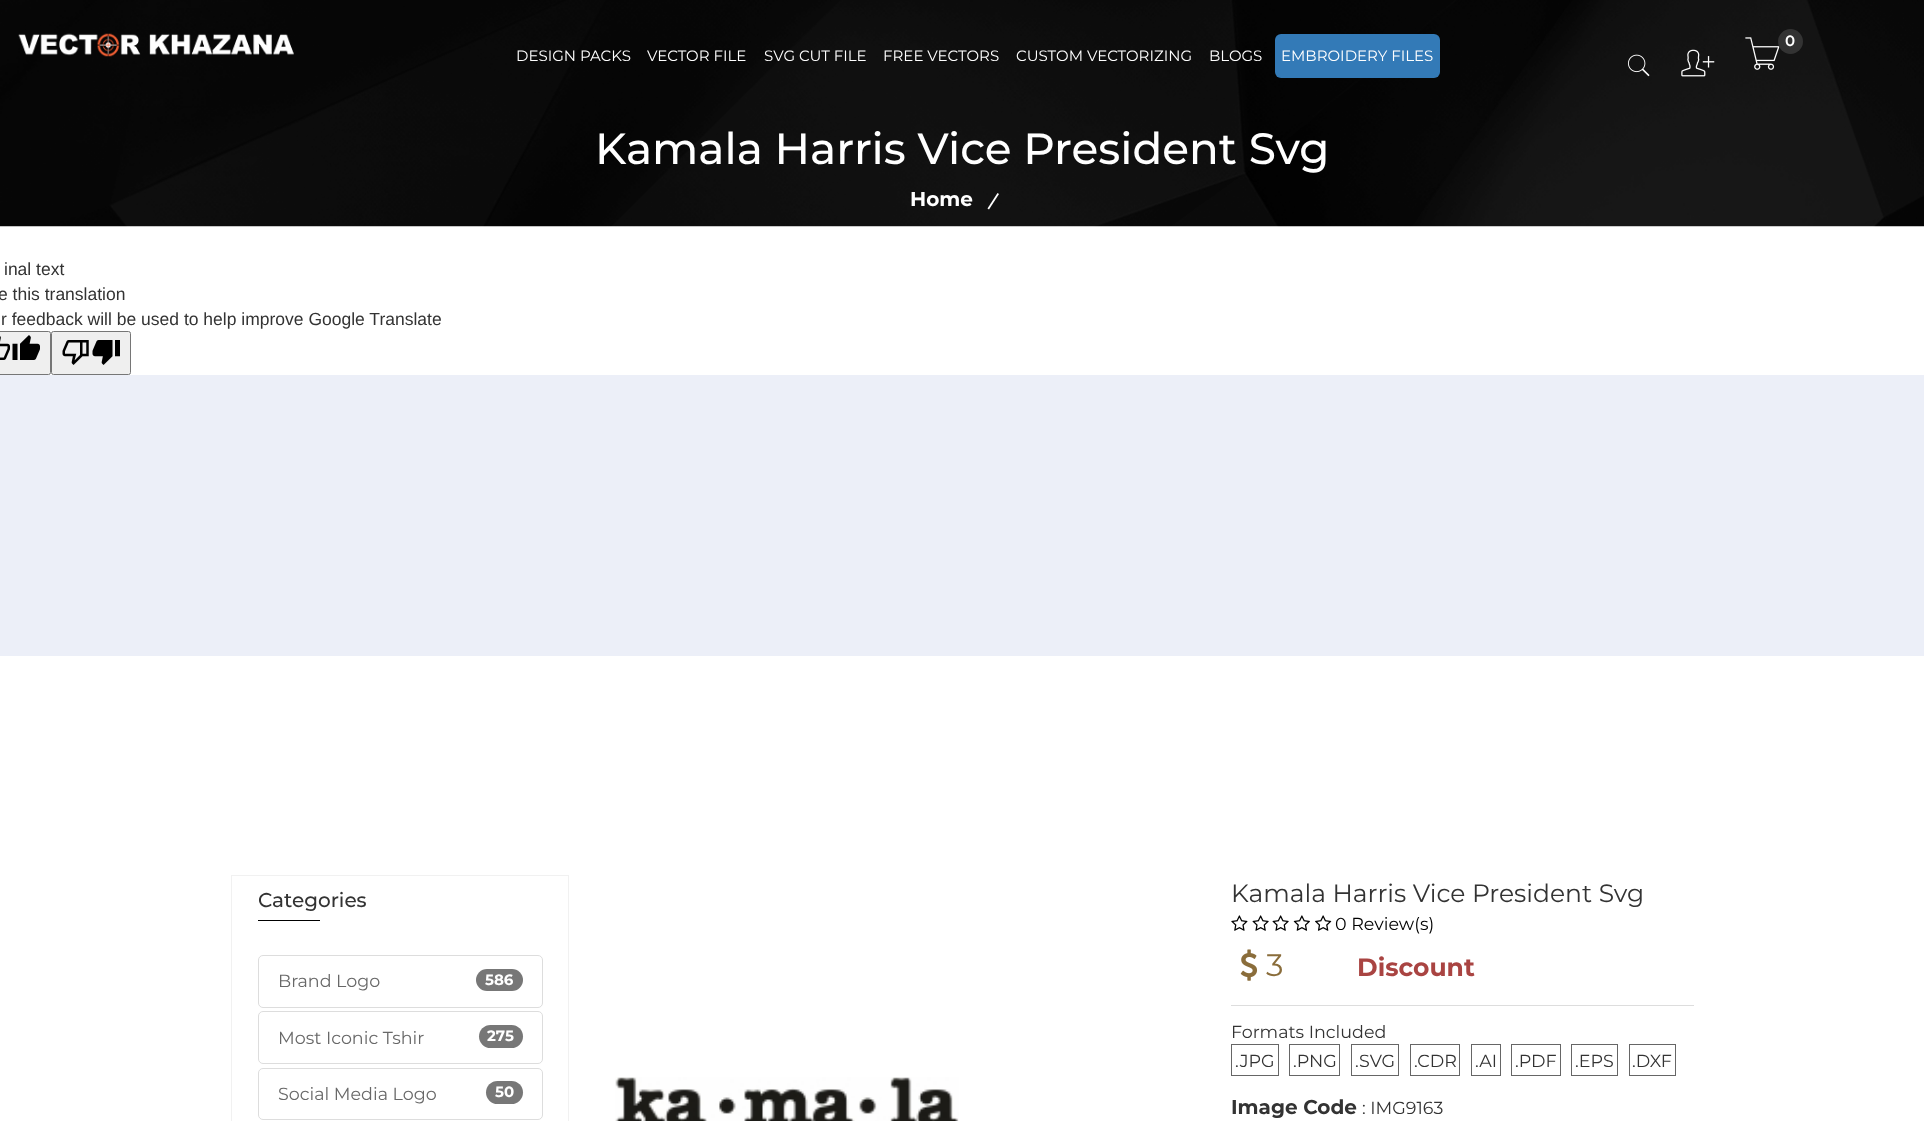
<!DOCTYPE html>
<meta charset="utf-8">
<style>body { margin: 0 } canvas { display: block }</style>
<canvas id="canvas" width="1924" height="1121"></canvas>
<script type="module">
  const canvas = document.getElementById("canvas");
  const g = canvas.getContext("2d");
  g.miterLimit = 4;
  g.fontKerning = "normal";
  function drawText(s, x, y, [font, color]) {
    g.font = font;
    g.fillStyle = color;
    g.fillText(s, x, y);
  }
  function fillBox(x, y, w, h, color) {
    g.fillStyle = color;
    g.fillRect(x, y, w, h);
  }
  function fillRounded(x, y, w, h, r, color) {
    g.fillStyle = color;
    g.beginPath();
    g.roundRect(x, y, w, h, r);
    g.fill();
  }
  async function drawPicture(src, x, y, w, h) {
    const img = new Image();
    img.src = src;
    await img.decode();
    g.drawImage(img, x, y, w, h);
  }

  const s1 = ["600 15px Montserrat", "#FFFFFF"];
  const s2 = ["15px Montserrat", "#FFFFFF"];
  const s3 = ["500 43.75px Montserrat", "#FFFFFF"];
  const s4 = ["bold 20px Montserrat", "#FFFFFF"];
  const s5 = ["17.5px Liberation Sans", "#333333"];
  const s6 = ["500 20px Montserrat", "#333333"];
  const s7 = ["17.5px Montserrat", "#686868"];
  const s8 = ["bold 15px Montserrat", "#FFFFFF"];
  const s9 = ["25px Montserrat", "#333333"];
  const s10 = ["17.5px Montserrat", "#000000"];
  const s11 = ["31px Montserrat", "#8A6D3B"];
  const s12 = ["bold 25px Montserrat", "#A94442"];
  const s13 = ["17.5px Montserrat", "#333333"];
  const s14 = ["bold 20px Montserrat", "#333333"];

  fillBox(0, 0, 1924, 1121, "#FFFFFF");
  await drawPicture("pic5.png", 0, 0, 1924, 227);
  await drawPicture("pic1.png", 18, 33, 276, 24);
  await drawPicture("pic2.png", 1745, 37, 35, 33);
  g.fillStyle = "#333333";
  g.beginPath();
  g.arc(1790.5, 41.5, 12.5, 0, Math.PI * 2);
  g.fill();
  drawText("0", 1785, 46, s1);
  await drawPicture("pic3.png", 1627, 54, 23, 23);
  await drawPicture("pic4.png", 1681, 49, 34, 28);
  drawText("DESIGN PACKS", 516, 61, s2);
  drawText("VECTOR FILE", 647, 61, s2);
  drawText("SVG CUT FILE", 764, 61, s2);
  drawText("FREE VECTORS", 883, 61, s2);
  drawText("CUSTOM VECTORIZING", 1016, 61, s2);
  drawText("BLOGS", 1209, 61, s2);
  fillRounded(1275, 34, 165, 44, 6, "#337AB7");
  drawText("EMBROIDERY FILES", 1281, 61, s2);
  drawText("Kamala Harris Vice President Svg", 595, 164, s3);
  drawText("Home", 910, 206, s4);
  g.beginPath();
  g.moveTo(997.5, 193);
  g.lineTo(999, 194);
  g.lineTo(989, 209.5);
  g.lineTo(987.5, 208.5);
  g.closePath();
  g.fill();
  drawText("inal text", 4, 275, s5);
  drawText("e this translation", -2, 300, s5);
  drawText("r feedback will be used to help improve Google Translate", 1, 325, s5);
  g.fillStyle = "#EFEFEF";
  g.beginPath();
  g.roundRect(-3.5, 331.5, 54, 43, 2);
  g.fill();
  g.strokeStyle = "#767676";
  g.stroke();
  await drawPicture("pic6.png", 0, 336, 10, 24);
  await drawPicture("pic7.png", 12, 335, 28, 25);
  g.beginPath();
  g.roundRect(51.5, 331.5, 79, 43, 2);
  g.fill();
  g.stroke();
  await drawPicture("pic8.png", 62, 340, 27, 25);
  await drawPicture("pic9.png", 92, 340, 28, 25);
  fillBox(0, 375, 1924, 281, "#ECEFF8");
  g.strokeStyle = "#F1F1F1";
  g.strokeRect(231.5, 875.5, 337, 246);
  drawText("Categories", 258, 907, s6);
  fillBox(258, 920, 62, 1, "#000000");
  g.beginPath();
  g.roundRect(258.5, 955.5, 284, 52, 4.5);
  g.strokeStyle = "#DDDDDD";
  g.stroke();
  drawText("Brand Logo", 278, 987, s7);
  fillRounded(476, 969, 47, 22, 11, "#777777");
  drawText("586", 485, 985, s8);
  g.beginPath();
  g.roundRect(258.5, 1011.5, 284, 52, 4.5);
  g.stroke();
  drawText("Most Iconic Tshir", 278, 1044, s7);
  fillRounded(479, 1025, 44, 23, 11.5, "#777777");
  drawText("275", 487, 1041, s8);
  g.beginPath();
  g.roundRect(258.5, 1068.5, 284, 51, 4.5);
  g.stroke();
  drawText("Social Media Logo", 278, 1100, s7);
  fillRounded(486, 1081, 37, 23, 11.5, "#777777");
  drawText("50", 495, 1097, s8);
  await drawPicture("pic10.png", 615, 1077, 344, 44);
  fillBox(1231, 1005, 463, 1, "#DDDDDD");
  drawText("Kamala Harris Vice President Svg", 1231, 902, s9);
  await drawPicture("pic11.png", 1231, 915, 17, 16);
  await drawPicture("pic12.png", 1252, 915, 17, 16);
  await drawPicture("pic12.png", 1272, 915, 17, 16);
  await drawPicture("pic13.png", 1293, 915, 17, 16);
  await drawPicture("pic14.png", 1315, 915, 17, 16);
  drawText("0 Review(s)", 1335, 930, s10);
  await drawPicture("pic15.png", 1240, 949, 18, 32);
  drawText("3", 1266, 976, s11);
  drawText("Discount", 1357, 976, s12);
  drawText("Formats Included", 1231, 1038, s13);
  g.strokeStyle = "#666666";
  g.strokeRect(1231.5, 1044.5, 47, 31);
  drawText(".JPG", 1235, 1067, s13);
  g.strokeRect(1289.5, 1044.5, 50, 31);
  drawText(".PNG", 1293, 1067, s13);
  g.strokeRect(1351.5, 1044.5, 47, 31);
  drawText(".SVG", 1355, 1067, s13);
  g.strokeRect(1410.5, 1044.5, 49, 31);
  drawText(".CDR", 1414, 1067, s13);
  g.strokeRect(1471.5, 1044.5, 29, 31);
  drawText(".AI", 1475, 1067, s13);
  g.strokeRect(1511.5, 1044.5, 49, 31);
  drawText(".PDF", 1515, 1067, s13);
  g.strokeRect(1571.5, 1044.5, 46, 31);
  drawText(".EPS", 1575, 1067, s13);
  g.strokeRect(1629.5, 1044.5, 46, 31);
  drawText(".DXF", 1632, 1067, s13);
  drawText("Image Code", 1231, 1114, s14);
  drawText(": IMG9163", 1362, 1114, s13);
</script>
